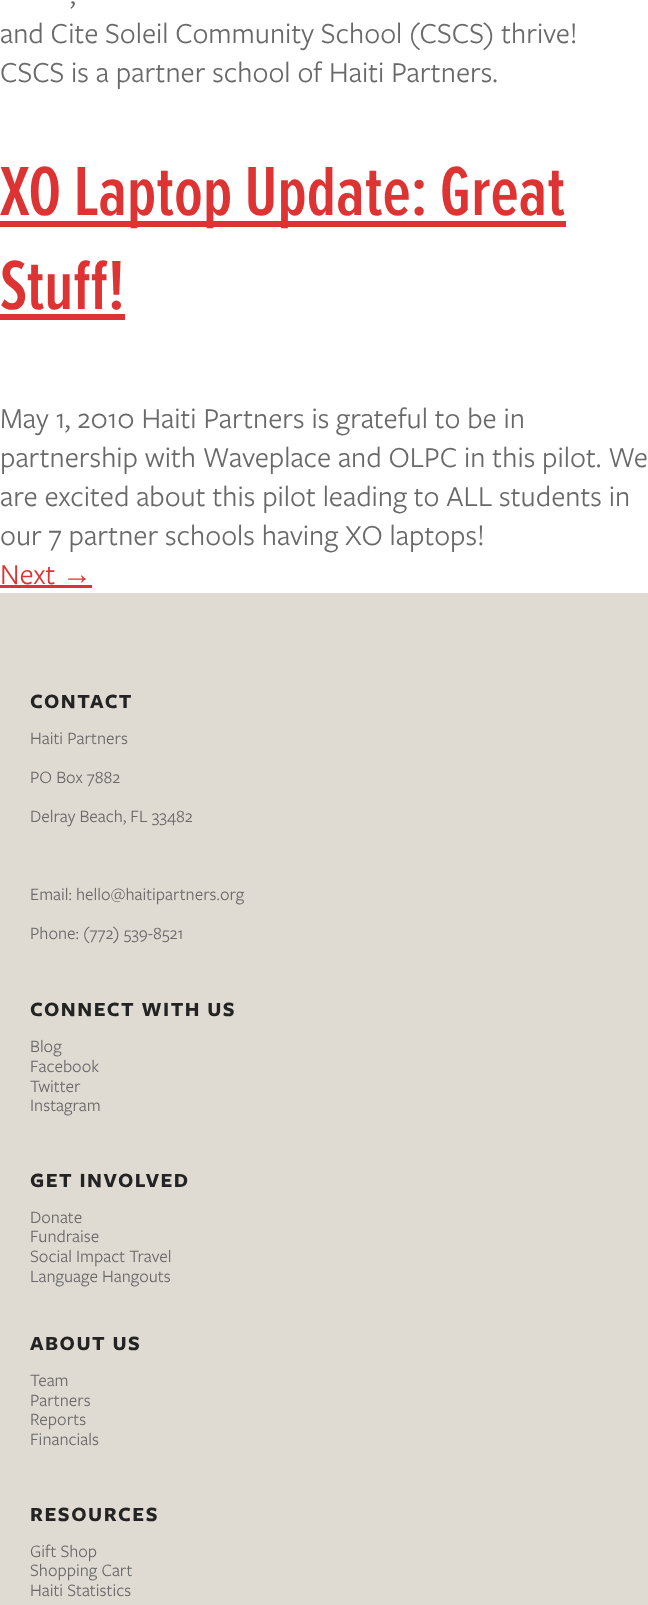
<!DOCTYPE html>
<meta charset="utf-8">
<style>body { margin: 0 } canvas { display: block }</style>
<canvas id="canvas" width="648" height="1605"></canvas>
<script type="module">
  const canvas = document.getElementById("canvas");
  const g = canvas.getContext("2d");
  g.miterLimit = 4;
  g.fontKerning = "normal";
  function drawText(s, x, y, [font, color]) {
    g.font = font;
    g.fillStyle = color;
    g.fillText(s, x, y);
  }
  function fillBox(x, y, w, h, color) {
    g.fillStyle = color;
    g.fillRect(x, y, w, h);
  }

  const s1 = ["30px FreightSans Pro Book", "#696969"];
  const s2 = ["600 72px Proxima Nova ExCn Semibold", "#DD3333"];
  const s3 = ["30px FreightSans Pro Book", "#DD3333"];
  const s4 = ["30px Liberation Sans", "#DD3333"];
  const s5 = ["bold 21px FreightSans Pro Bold", "#232323"];
  const s6 = ["18px FreightSans Pro Book", "#696969"];

  fillBox(0, 0, 648, 1605, "#FFFFFF");
  drawText(",", 70, 4, s1);
  drawText("and Cite Soleil Community School (CSCS) thrive!", 0, 43, s1);
  drawText("CSCS is a partner school of Haiti Partners.", 0, 82, s1);
  fillBox(0, 221, 566, 6, "#DD3333");
  drawText("XO Laptop Update: Great", 0, 215, s2);
  drawText("Stuff!", 0, 309, s2);
  fillBox(0, 314, 125, 6, "#DD3333");
  drawText("May 1, 2010 Haiti Partners is grateful to be in", 0, 428, s1);
  drawText("partnership with Waveplace and OLPC in this pilot. We", 0, 467, s1);
  drawText("are excited about this pilot leading to ALL students in", 0, 506, s1);
  drawText("our 7 partner schools having XO laptops!", 0, 545, s1);
  drawText("Next", 0, 584, s3);
  drawText("→", 62, 584, s4);
  fillBox(0, 585, 92, 3, "#DD3333");
  fillBox(0, 593, 648, 1012, "#DFDBD3");
  g.letterSpacing = "1.5px";
  drawText("CONTACT", 30, 708, s5);
  g.letterSpacing = "0px";
  drawText("Haiti Partners", 30, 744, s6);
  drawText("PO Box 7882", 30, 783, s6);
  drawText("Delray Beach, FL 33482", 30, 822, s6);
  drawText("Email: hello@haitipartners.org", 30, 900, s6);
  drawText("Phone: (772) 539-8521", 30, 939, s6);
  g.letterSpacing = "1.5px";
  drawText("CONNECT WITH US", 30, 1016, s5);
  g.letterSpacing = "0px";
  drawText("Blog", 30, 1052, s6);
  drawText("Facebook", 30, 1072, s6);
  drawText("Twitter", 30, 1092, s6);
  drawText("Instagram", 30, 1111, s6);
  g.letterSpacing = "1.5px";
  drawText("GET INVOLVED", 30, 1187, s5);
  g.letterSpacing = "0px";
  drawText("Donate", 30, 1223, s6);
  drawText("Fundraise", 30, 1242, s6);
  drawText("Social Impact Travel", 30, 1262, s6);
  drawText("Language Hangouts", 30, 1282, s6);
  g.letterSpacing = "1.5px";
  drawText("ABOUT US", 30, 1350, s5);
  g.letterSpacing = "0px";
  drawText("Team", 30, 1386, s6);
  drawText("Partners", 30, 1406, s6);
  drawText("Reports", 30, 1425, s6);
  drawText("Financials", 30, 1445, s6);
  g.letterSpacing = "1.5px";
  drawText("RESOURCES", 30, 1521, s5);
  g.letterSpacing = "0px";
  drawText("Gift Shop", 30, 1557, s6);
  drawText("Shopping Cart", 30, 1576, s6);
  drawText("Haiti Statistics", 30, 1596, s6);
</script>
